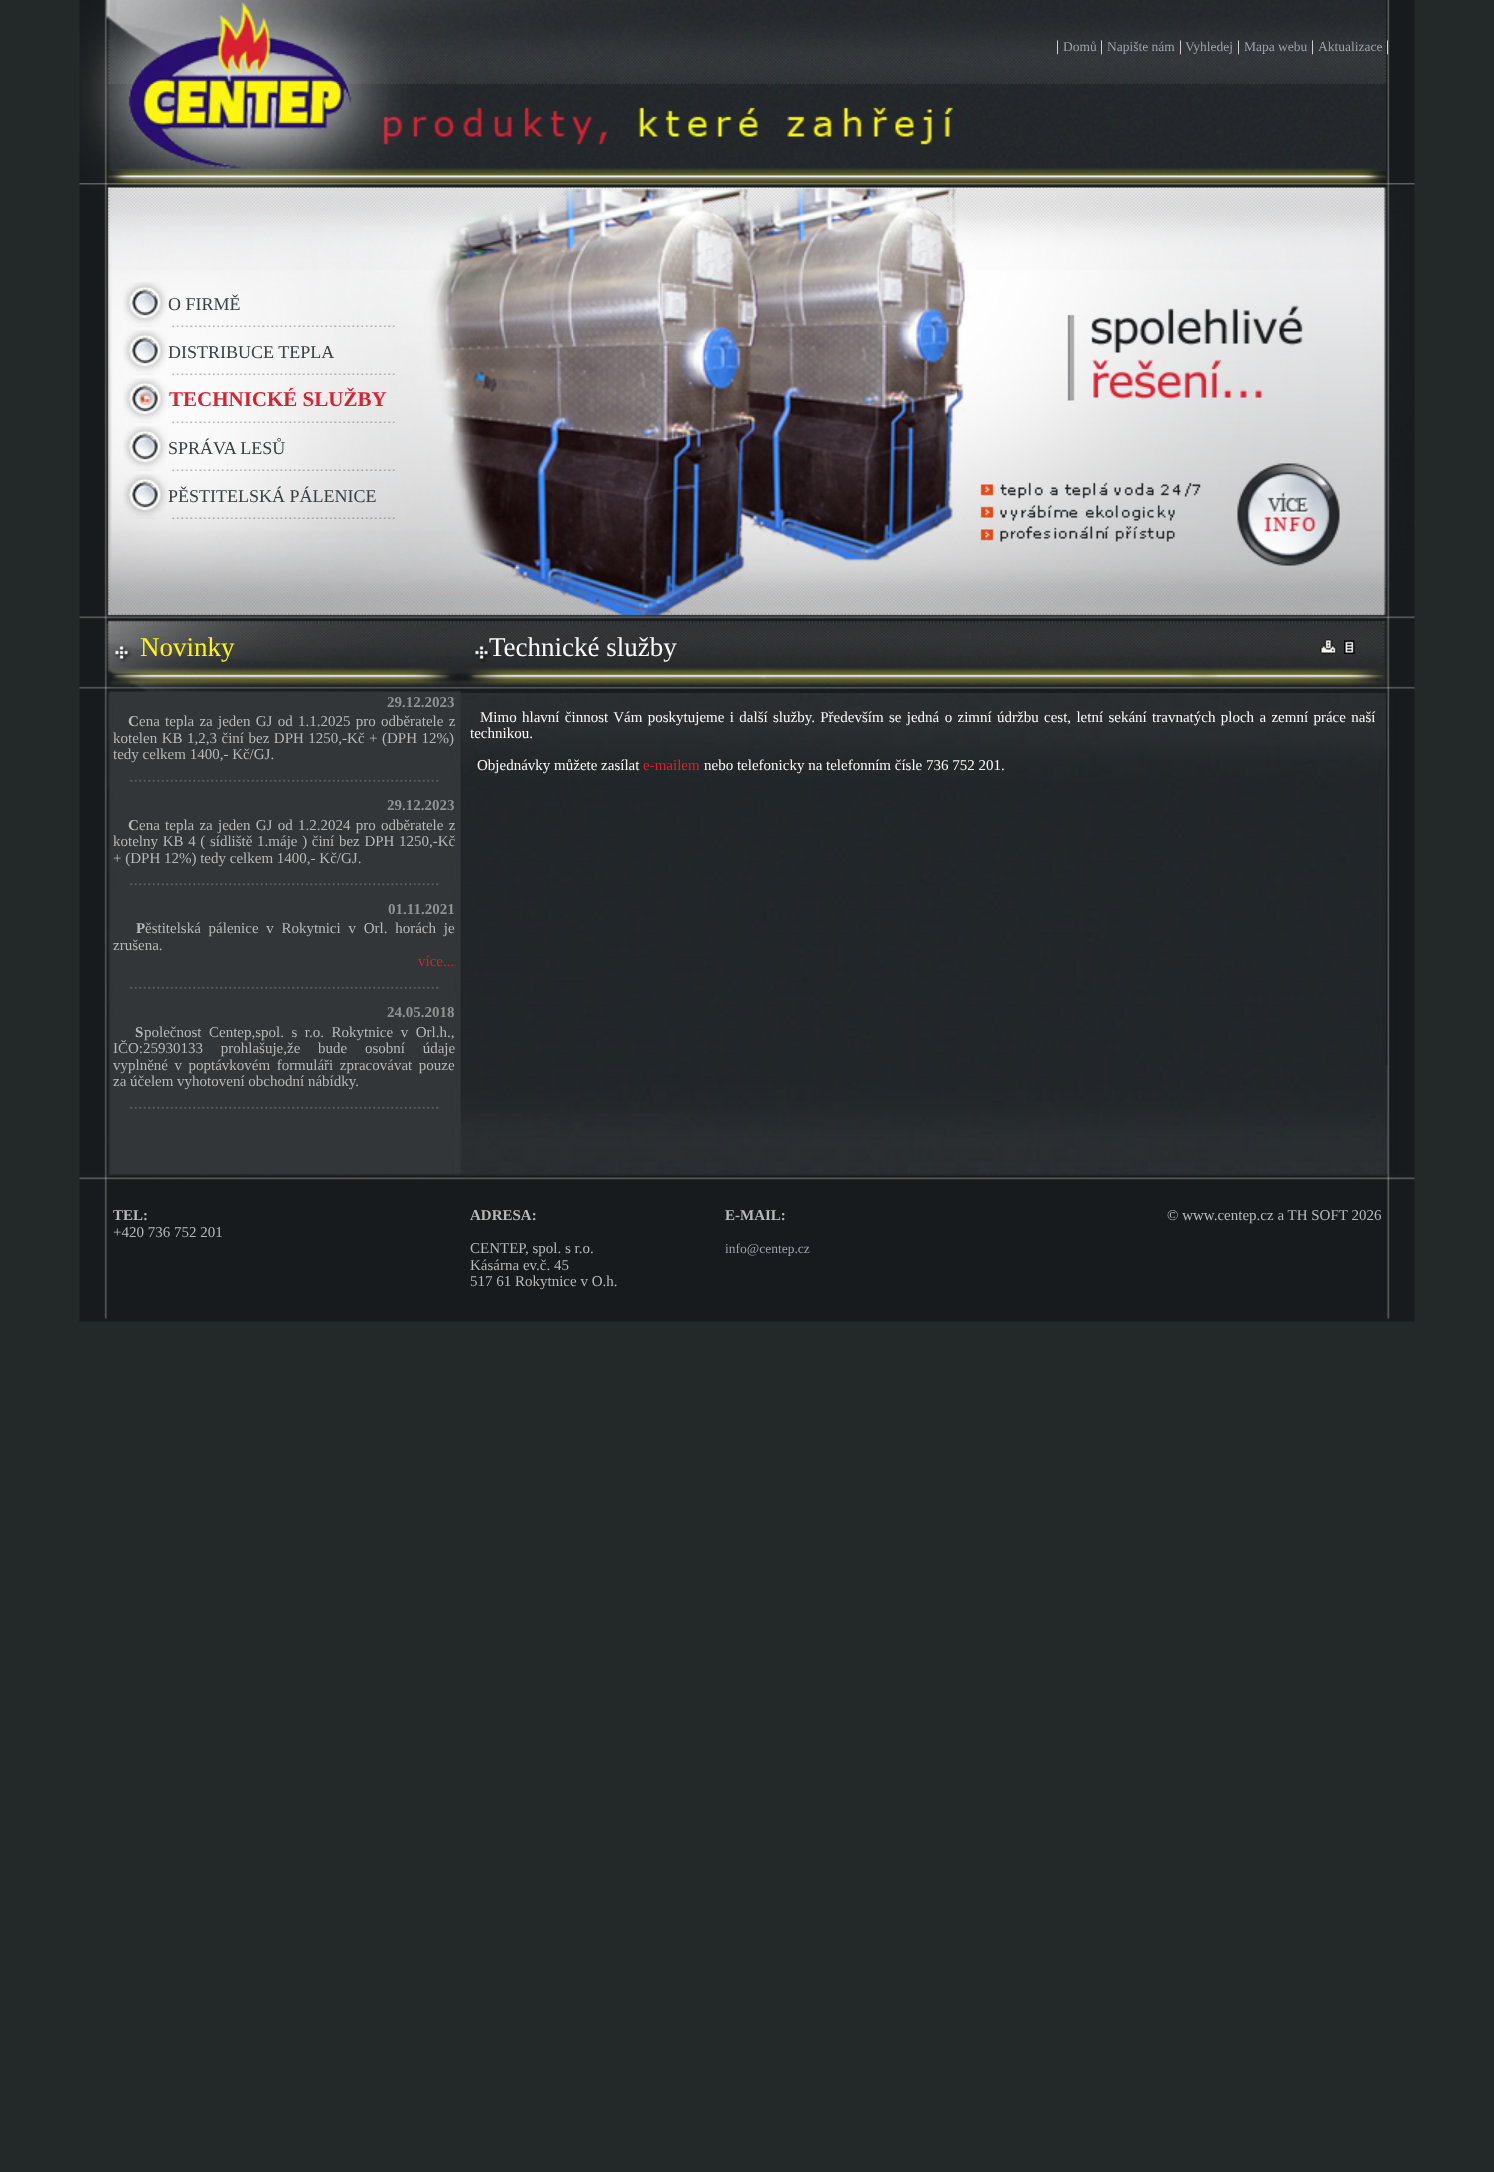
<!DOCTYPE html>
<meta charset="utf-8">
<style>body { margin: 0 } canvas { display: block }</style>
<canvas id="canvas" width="1494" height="2172"></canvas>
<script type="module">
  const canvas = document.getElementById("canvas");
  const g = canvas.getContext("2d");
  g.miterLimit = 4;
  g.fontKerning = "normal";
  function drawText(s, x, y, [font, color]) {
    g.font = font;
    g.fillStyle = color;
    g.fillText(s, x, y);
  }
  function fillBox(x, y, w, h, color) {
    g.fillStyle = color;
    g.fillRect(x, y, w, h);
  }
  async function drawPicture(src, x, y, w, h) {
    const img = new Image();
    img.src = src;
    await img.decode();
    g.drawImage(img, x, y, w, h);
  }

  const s1 = ["15px Liberation Serif", "#FDFAFA"];
  const s2 = ["13.5px Liberation Serif", "#99A1A9"];
  const s3 = ["18px Liberation Serif", "#394141"];
  const s4 = ["bold 21px Liberation Serif", "#D82233"];
  const s5 = ["27px Liberation Serif", "#FFF511"];
  const s6 = ["27px Liberation Serif", "#FDFAFA"];
  const s7 = ["bold 15px Liberation Serif", "#909293"];
  const s8 = ["bold 15px Liberation Serif", "#B8B8B8"];
  const s9 = ["15px Liberation Serif", "#B8B8B8"];
  const s10 = ["15px Liberation Serif", "#D82233"];

  fillBox(0, 0, 1494, 2172, "#232829");
  await drawPicture("pic1.png", 79, 0, 1336, 84);
  drawText("|", 1056, 51, s1);
  drawText("Domů", 1063, 51, s2);
  drawText("|", 1100, 51, s1);
  drawText("Napište nám", 1107, 51, s2);
  drawText("|", 1179, 51, s1);
  drawText("Vyhledej", 1185, 51, s2);
  drawText("|", 1237, 51, s1);
  drawText("Mapa webu", 1244, 51, s2);
  drawText("|", 1311, 51, s1);
  drawText("Aktualizace", 1318, 51, s2);
  drawText("|", 1386, 51, s1);
  await drawPicture("pic2.png", 79, 84, 1336, 99);
  await drawPicture("pic3.png", 79, 183, 1336, 434);
  await drawPicture("pic4.png", 123, 282, 272, 45);
  drawText("O FIRMĚ", 168, 310, s3);
  await drawPicture("pic5.png", 123, 330, 272, 45);
  drawText("DISTRIBUCE TEPLA", 168, 358, s3);
  await drawPicture("pic6.png", 123, 378, 272, 45);
  drawText("TECHNICKÉ SLUŽBY", 169, 406, s4);
  await drawPicture("pic7.png", 123, 426, 272, 45);
  drawText("SPRÁVA LESŮ", 168, 454, s3);
  await drawPicture("pic8.png", 123, 474, 272, 45);
  drawText("PĚSTITELSKÁ PÁLENICE", 168, 502, s3);
  await drawPicture("pic9.png", 79, 616, 1336, 77);
  drawText("Novinky", 140, 656, s5);
  drawText("Technické služby", 489, 656, s6);
  await drawPicture("pic10.png", 1320, 639, 17, 15);
  await drawPicture("pic11.png", 1344, 640, 11, 14);
  await drawPicture("pic12.png", 79, 693, 1336, 482);
  drawText("29.12.2023", 387, 707, s7);
  drawText("C", 128, 726, s8);
  g.wordSpacing = "1.5px";
  drawText("ena tepla za jeden GJ od 1.1.2025 pro odběratele z", 139, 726, s9);
  g.wordSpacing = "0.75px";
  drawText("kotelen KB 1,2,3 činí bez DPH 1250,-Kč + (DPH 12%)", 113, 743, s9);
  g.wordSpacing = "0px";
  drawText("tedy celkem 1400,- Kč/GJ.", 113, 759, s9);
  await drawPicture("pic13.png", 130, 779, 309, 3);
  drawText("29.12.2023", 387, 810, s7);
  drawText("C", 128, 830, s8);
  g.wordSpacing = "1.5px";
  drawText("ena tepla za jeden GJ od 1.2.2024 pro odběratele z", 139, 830, s9);
  g.wordSpacing = "0.9px";
  drawText("kotelny KB 4 ( sídliště 1.máje ) činí bez DPH 1250,-Kč", 113, 846, s9);
  g.wordSpacing = "0px";
  drawText("+ (DPH 12%) tedy celkem 1400,- Kč/GJ.", 113, 863, s9);
  await drawPicture("pic14.png", 130, 883, 309, 3);
  drawText("01.11.2021", 388, 914, s7);
  drawText("P", 136, 933, s8);
  g.wordSpacing = "4px";
  drawText("ěstitelská pálenice v Rokytnici v Orl. horách je", 145, 933, s9);
  g.wordSpacing = "0px";
  drawText("zrušena.", 113, 950, s9);
  drawText("více...", 418, 966, s10);
  await drawPicture("pic13.png", 130, 986, 309, 3);
  drawText("24.05.2018", 387, 1017, s7);
  drawText("S", 135, 1037, s8);
  g.wordSpacing = "3.75px";
  drawText("polečnost Centep,spol. s r.o. Rokytnice v Orl.h.,", 144, 1037, s9);
  g.wordSpacing = "14px";
  drawText("IČO:25930133 prohlašuje,že bude osobní údaje", 113, 1053, s9);
  g.wordSpacing = "2.75px";
  drawText("vyplněné v poptávkovém formuláři zpracovávat pouze", 113, 1070, s9);
  g.wordSpacing = "0px";
  drawText("za účelem vyhotovení obchodní nábídky.", 113, 1086, s9);
  await drawPicture("pic13.png", 130, 1106, 309, 3);
  g.wordSpacing = "1.6px";
  drawText("Mimo hlavní činnost Vám poskytujeme i další služby. Především se jedná o zimní údržbu cest, letní sekání travnatých ploch a zemní práce naší", 480, 722, s1);
  g.wordSpacing = "0px";
  drawText("technikou.", 470, 738, s1);
  drawText("Objednávky můžete zasílat", 477, 770, s1);
  drawText("e-mailem", 643, 770, s10);
  drawText("nebo telefonicky na telefonním čísle 736 752 201.", 704, 770, s1);
  await drawPicture("pic15.png", 79, 1174, 1336, 148);
  drawText("TEL:", 113, 1220, s8);
  drawText("+420 736 752 201", 113, 1237, s9);
  drawText("ADRESA:", 470, 1220, s8);
  drawText("CENTEP, spol. s r.o.", 470, 1253, s9);
  drawText("Kásárna ev.č. 45", 470, 1270, s9);
  drawText("517 61 Rokytnice v O.h.", 470, 1286, s9);
  drawText("E-MAIL:", 725, 1220, s8);
  drawText("info@centep.cz", 725, 1253, s2);
  drawText("© www.centep.cz a TH SOFT 2026", 1167, 1220, s9);
</script>
